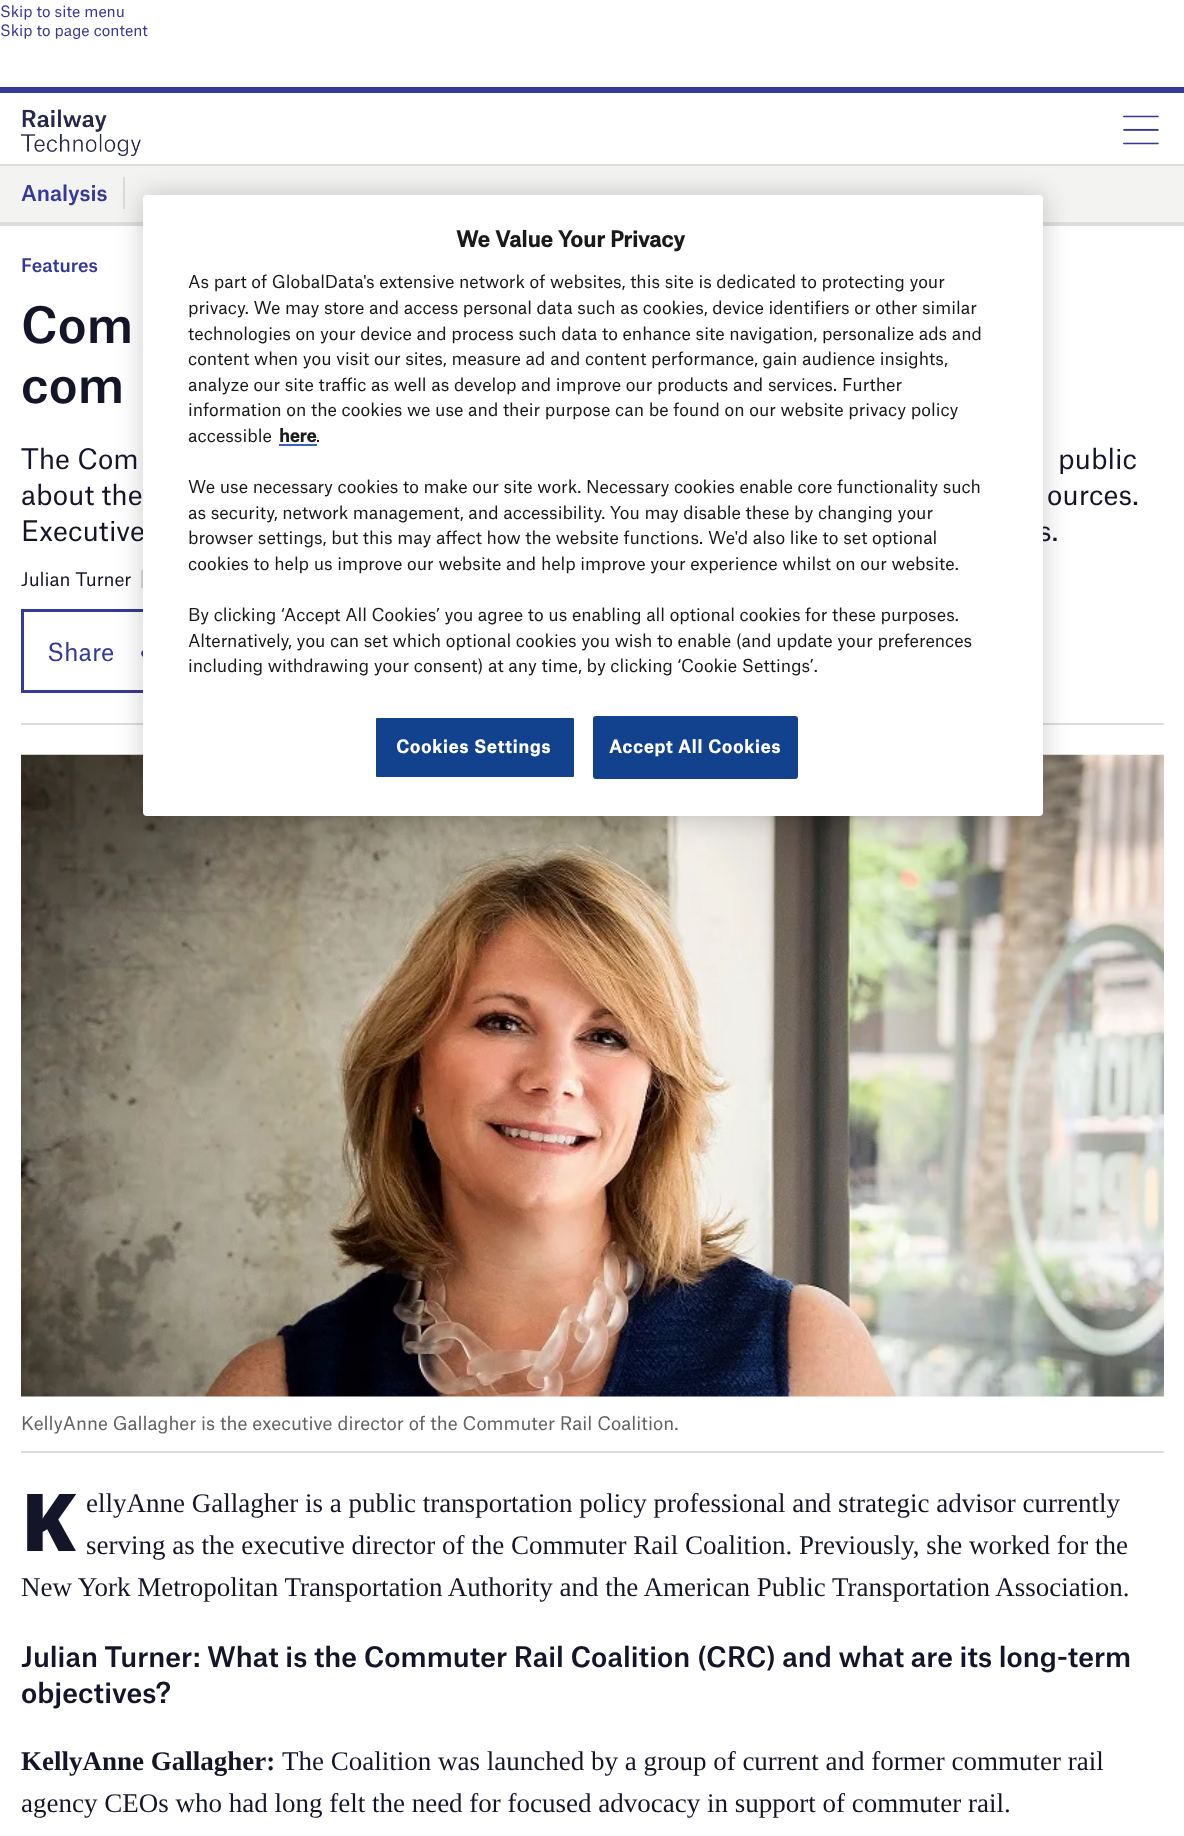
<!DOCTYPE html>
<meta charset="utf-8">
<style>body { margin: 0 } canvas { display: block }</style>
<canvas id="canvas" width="1184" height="1836"></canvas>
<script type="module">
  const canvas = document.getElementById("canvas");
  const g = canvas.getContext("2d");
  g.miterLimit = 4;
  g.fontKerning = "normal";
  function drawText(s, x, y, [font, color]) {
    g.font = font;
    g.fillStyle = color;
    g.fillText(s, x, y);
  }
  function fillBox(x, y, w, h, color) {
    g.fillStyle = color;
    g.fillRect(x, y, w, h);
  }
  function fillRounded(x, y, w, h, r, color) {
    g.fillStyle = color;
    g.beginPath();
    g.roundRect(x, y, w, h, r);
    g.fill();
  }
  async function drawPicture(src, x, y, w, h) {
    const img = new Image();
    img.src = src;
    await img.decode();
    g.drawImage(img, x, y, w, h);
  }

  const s1 = ["15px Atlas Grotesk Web", "#373997"];
  const s2 = ["500 21px Atlas Grotesk Web", "#373997"];
  const s3 = ["27px Atlas Grotesk Web", "#151529"];
  const s4 = ["bold 21px Atlas Grotesk Web", "#1A1A1A"];
  const s5 = ["17.05px Atlas Grotesk Web", "#1A1A1A"];
  const s6 = ["bold 17.05px Atlas Grotesk Web", "#1A1A1A"];
  const s7 = ["bold 17.05px Atlas Grotesk Web", "#FFFFFF"];
  const s8 = ["500 18px Atlas Grotesk Web", "#373997"];
  const s9 = ["500 48px Atlas Grotesk Web", "#151529"];
  const s10 = ["18px Atlas Grotesk Web", "#151529"];
  const s11 = ["24px Atlas Grotesk Web", "#373997"];
  const s12 = ["18px Atlas Grotesk Web", "#626262"];
  const s13 = ["900 80px Noto Sans", "#151529"];
  const s14 = ["27px Liberation Serif", "#151529"];
  const s15 = ["500 27px Atlas Grotesk Web", "#151529"];
  const s16 = ["bold 27px Liberation Serif", "#151529"];

  fillBox(0, 0, 1184, 1836, "#FFFFFF");
  drawText("Skip to site menu", 0, 17, s1);
  drawText("Skip to page content", 0, 36, s1);
  fillBox(0, 87, 1184, 6, "#373997");
  fillBox(0, 222, 1184, 4, "#DDDDDD");
  await drawPicture("pic1.png", 21, 109, 120, 47);
  await drawPicture("pic2.png", 1123, 115, 36, 30);
  fillBox(0, 166, 1184, 56, "#F3F3F1");
  fillBox(0, 164, 1184, 2, "#DDDDDD");
  drawText("Analysis", 21, 201, s2);
  fillBox(123, 177, 2, 32, "#DBDBDB");
  fillBox(141, 570, 2, 18, "#DBDBDB");
  fillBox(21, 723, 1143, 2, "#DDDDDD");
  g.strokeStyle = "#373997";
  g.lineWidth = 3;
  g.strokeRect(22.5, 610.5, 162, 81);
  await drawPicture("pic3.png", 141, 650, 2, 7);
  await drawPicture("pic4.png", 21, 754, 1143, 643);
  g.fillStyle = "rgba(0, 0, 0, 0.2)";
  g.filter = "blur(13.5px)";
  g.beginPath();
  g.roundRect(143, 195, 900, 621, 4);
  g.fill();
  g.filter = "none";
  drawText("Executive", 21, 541, s3);
  drawText("s.", 1038, 541, s3);
  fillRounded(143, 195, 900, 621, 4, "#FFFFFF");
  drawText("We Value Your Privacy", 456, 247, s4);
  drawText("As part of GlobalData's extensive network of websites, this site is dedicated to protecting your", 188, 288, s5);
  drawText("privacy. We may store and access personal data such as cookies, device identifiers or other similar", 188, 314, s5);
  drawText("technologies on your device and process such data to enhance site navigation,", 188, 340, s5);
  drawText("personalize ads and", 822, 340, s5);
  drawText("content when you visit our sites, measure ad and content performance, gain audience insights,", 188, 365, s5);
  drawText("analyze our site traffic as well as develop and improve our products and services.", 188, 391, s5);
  drawText("Further", 842, 391, s5);
  drawText("information on the cookies we use and their purpose can be found on our website privacy policy", 188, 416, s5);
  drawText("accessible", 188, 442, s5);
  drawText("here", 279, 442, s6);
  fillBox(279, 444, 38, 2, "#3860BE");
  drawText(".", 316, 442, s5);
  drawText("We use necessary cookies to make our site work. Necessary cookies enable core functionality such", 188, 493, s5);
  drawText("as security, network management, and accessibility. You may disable these by changing your", 188, 519, s5);
  drawText("browser settings, but this may affect how the website functions.", 188, 544, s5);
  drawText("We'd also like to set optional", 708, 544, s5);
  drawText("cookies to help us improve our website and help improve your experience whilst on our website.", 188, 570, s5);
  drawText("By clicking ‘Accept All Cookies’ you agree to us enabling all optional cookies for these purposes.", 188, 621, s5);
  drawText("Alternatively, you can set which optional cookies you wish to enable (and update your preferences", 188, 647, s5);
  drawText("including withdrawing your consent) at any time, by clicking ‘Cookie Settings’.", 188, 672, s5);
  g.fillStyle = "#12418D";
  g.beginPath();
  g.roundRect(375, 717, 200, 61, 2);
  g.fill();
  g.strokeStyle = "#FFFFFF";
  g.lineWidth = 2;
  g.stroke();
  g.letterSpacing = "0.8px";
  drawText("Cookies Settings", 396, 753, s7);
  g.fillStyle = "#12418D";
  g.beginPath();
  g.roundRect(594, 717, 203, 61, 2);
  g.fill();
  g.strokeStyle = "#12418D";
  g.stroke();
  drawText("Accept All Cookies", 609, 753, s7);
  g.letterSpacing = "0px";
  drawText("Features", 21, 272, s8);
  drawText("Com", 21, 343, s9);
  drawText("com", 21, 403, s9);
  drawText("The Com", 21, 469, s3);
  drawText("public", 1058, 469, s3);
  drawText("about the", 21, 505, s3);
  drawText("ources.", 1047, 505, s3);
  drawText("Julian Turner", 21, 586, s10);
  drawText("Share", 47, 661, s11);
  fillBox(21, 1451, 1143, 2, "#DDDDDD");
  drawText("KellyAnne Gallagher is the executive director of the Commuter Rail Coalition.", 21, 1430, s12);
  drawText("K", 21, 1551, s13);
  drawText("ellyAnne Gallagher is a public transportation policy professional and strategic advisor currently", 86, 1512, s14);
  drawText("serving as the executive director of the Commuter Rail Coalition. Previously, she worked for the", 86, 1554, s14);
  drawText("New York Metropolitan Transportation Authority and the American Public Transportation Association.", 21, 1596, s14);
  drawText("Julian Turner: What is the Commuter Rail Coalition (CRC) and what are its long-term", 21, 1667, s15);
  drawText("objectives?", 21, 1703, s15);
  drawText("KellyAnne Gallagher:", 21, 1770, s16);
  drawText("The Coalition was launched by a group of current and former commuter rail", 282, 1770, s14);
  drawText("agency CEOs who had long felt the need for focused advocacy in support of commuter rail.", 21, 1812, s14);
</script>
